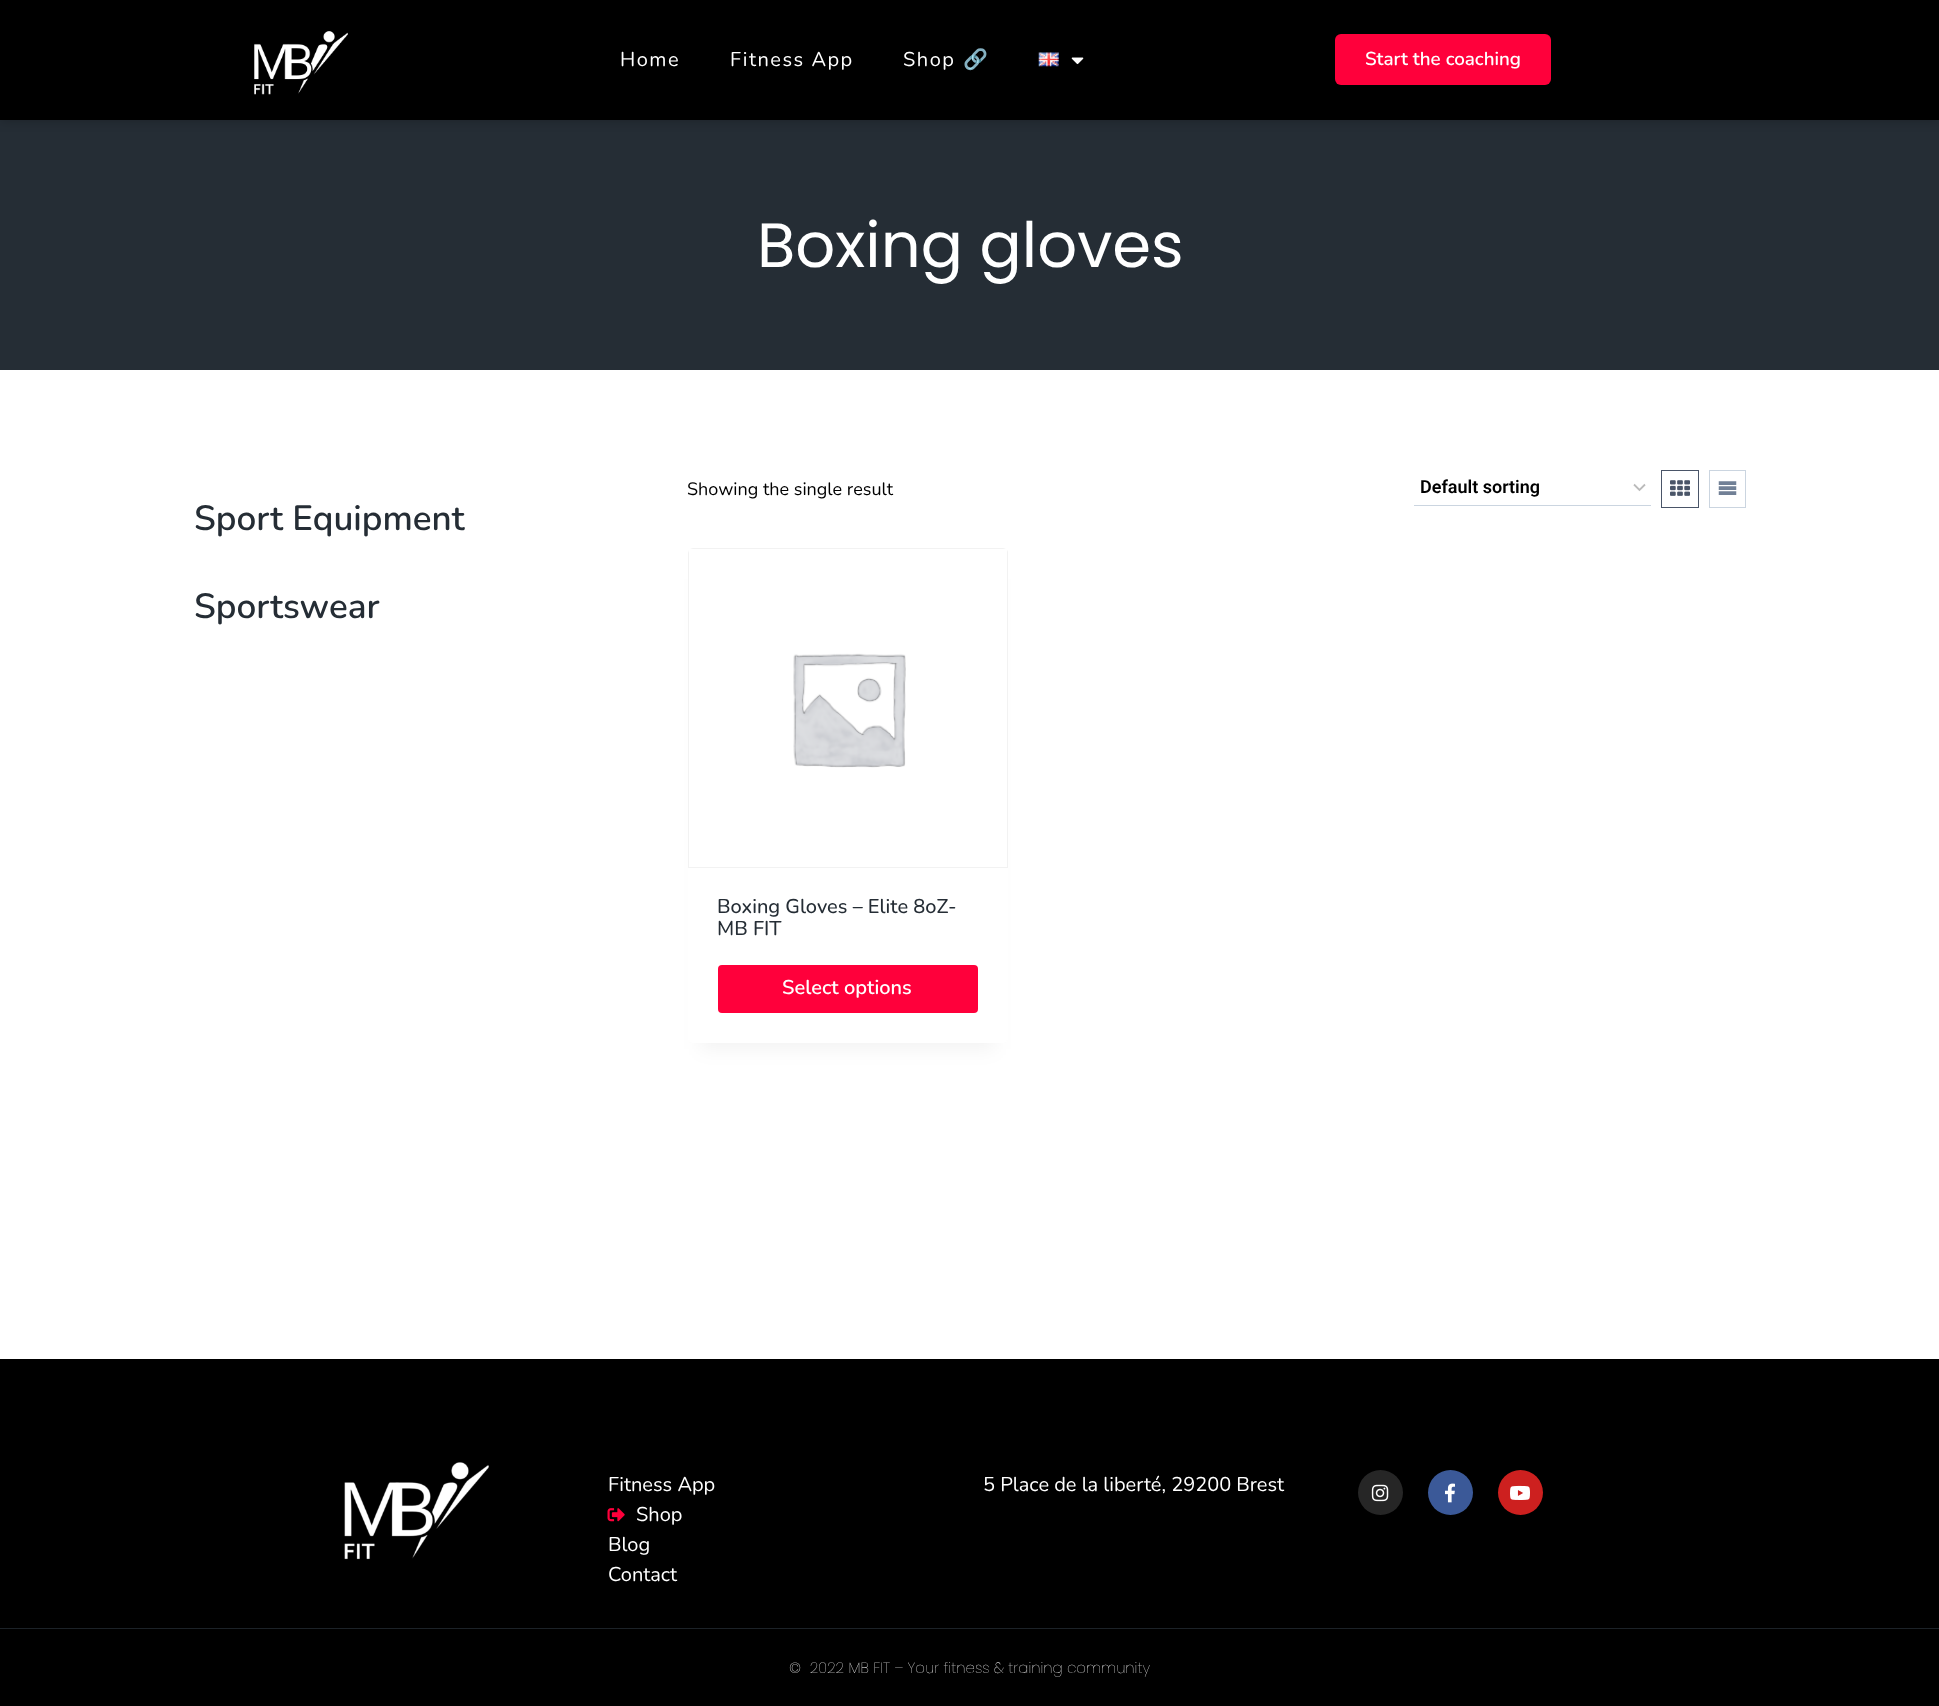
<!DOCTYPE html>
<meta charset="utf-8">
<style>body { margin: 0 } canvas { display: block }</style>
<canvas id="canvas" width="1939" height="1706"></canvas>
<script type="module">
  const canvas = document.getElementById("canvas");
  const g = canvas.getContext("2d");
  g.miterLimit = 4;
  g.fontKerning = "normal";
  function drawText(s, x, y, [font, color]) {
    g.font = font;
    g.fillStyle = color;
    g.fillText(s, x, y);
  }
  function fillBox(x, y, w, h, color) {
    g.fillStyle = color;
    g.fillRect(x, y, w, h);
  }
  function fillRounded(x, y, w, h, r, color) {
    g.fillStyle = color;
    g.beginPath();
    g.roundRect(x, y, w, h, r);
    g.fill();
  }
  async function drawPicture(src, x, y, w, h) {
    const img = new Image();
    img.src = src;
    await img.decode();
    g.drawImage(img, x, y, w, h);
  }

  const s1 = ["20px Nunito", "#FFFFFF"];
  const s2 = ["20px Noto Color Emoji", "#FFFFFF"];
  const s3 = ["600 18.75px Nunito", "#FFFFFF"];
  const s4 = ["62.5px Poppins", "#FFFFFF"];
  const s5 = ["600 35px Nunito", "#252D35"];
  const s6 = ["18px Nunito", "#000000"];
  const s7 = ["600 18px Roboto", "#000000"];
  const s8 = ["500 20px Nunito", "#252D35"];
  const s9 = ["600 20px Nunito", "#FFFFFF"];
  const s10 = ["200 15px Poppins", "#FFFFFF"];

  fillBox(0, 0, 1939, 1706, "#FFFFFF");
  fillBox(0, 120, 1939, 250, "#252D35");
  g.fillStyle = "rgba(0, 0, 0, 0.25)";
  g.filter = "blur(6px)";
  g.beginPath();
  g.rect(0, 0, 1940, 120);
  g.fill();
  g.filter = "none";
  fillBox(0, 0, 1939, 120, "#000000");
  await drawPicture("pic1.png", 254, 31, 94, 64);
  g.letterSpacing = "1.5px";
  drawText("Home", 620, 66, s1);
  drawText("Fitness App", 730, 66, s1);
  drawText("Shop", 903, 66, s1);
  drawText("🔗", 963, 66, s2);
  await drawPicture("pic2.png", 1038, 52, 21, 15);
  await drawPicture("pic3.png", 1071, 57, 13, 8);
  fillRounded(1335, 34, 216, 51, 6, "#FF003B");
  g.letterSpacing = "0px";
  drawText("Start the coaching", 1365, 65, s3);
  drawText("Boxing gloves", 757, 267, s4);
  drawText("Sport Equipment", 194, 530, s5);
  drawText("Sportswear", 194, 618, s5);
  drawText("Showing the single result", 687, 495, s6);
  g.beginPath();
  g.moveTo(1634, 484.5);
  g.lineTo(1639.5, 490);
  g.lineTo(1645, 484.5);
  g.strokeStyle = "#BBBBBB";
  g.lineWidth = 1.8;
  g.stroke();
  fillBox(1414, 505, 237, 1, "#CBD5E0");
  drawText("Default sorting", 1420, 493, s7);
  g.strokeStyle = "#4A5568";
  g.lineWidth = 1;
  g.strokeRect(1661.5, 470.5, 37, 37);
  await drawPicture("pic4.png", 1670, 480, 20, 16);
  g.strokeStyle = "#CBD5E0";
  g.strokeRect(1709.5, 470.5, 36, 37);
  await drawPicture("pic5.png", 1718, 481, 19, 14);
  g.fillStyle = "rgba(0, 0, 0, 0.05)";
  g.filter = "blur(9.5px)";
  g.beginPath();
  g.rect(700, 579, 295, 470);
  g.fill();
  g.filter = "none";
  fillRounded(688, 548, 320, 495, 5, "#FFFFFF");
  g.fillStyle = "#F2F2F2";
  g.beginPath();
  g.moveTo(688, 553);
  g.lineTo(688, 868);
  g.lineTo(1008, 868);
  g.lineTo(1008, 553);
  g.bezierCurveTo(1008, 552, 1008, 551, 1007, 550);
  g.lineTo(1007, 867);
  g.lineTo(689, 867);
  g.lineTo(689, 550);
  g.closePath();
  g.moveTo(693, 548);
  g.lineTo(690, 549);
  g.lineTo(1006, 549);
  g.lineTo(1003, 548);
  g.closePath();
  g.fill("evenodd");
  await drawPicture("pic6.png", 793, 653, 113, 115);
  drawText("Boxing Gloves – Elite 8oZ-", 717, 913, s8);
  drawText("MB FIT", 717, 935, s8);
  fillRounded(718, 965, 260, 48, 4, "#FF003B");
  drawText("Select options", 782, 994, s9);
  fillBox(0, 1359, 1939, 269, "#000000");
  await drawPicture("pic7.png", 344, 1462, 145, 98);
  drawText("Fitness App", 608, 1491, s1);
  await drawPicture("pic8.png", 607, 1508, 18, 14);
  drawText("Shop", 636, 1521, s1);
  drawText("Blog", 608, 1551, s1);
  drawText("Contact", 608, 1581, s1);
  drawText("5 Place de la liberté, 29200 Brest", 983, 1491, s1);
  g.fillStyle = "#262626";
  g.beginPath();
  g.arc(1380.5, 1492.5, 22.5, 0, Math.PI * 2);
  g.fill();
  await drawPicture("pic9.png", 1371, 1484, 18, 18);
  g.fillStyle = "#3B5998";
  g.beginPath();
  g.arc(1450.5, 1492.5, 22.5, 0, Math.PI * 2);
  g.fill();
  await drawPicture("pic10.png", 1445, 1483, 10, 20);
  g.fillStyle = "#CD201F";
  g.beginPath();
  g.arc(1520.5, 1492.5, 22.5, 0, Math.PI * 2);
  g.fill();
  await drawPicture("pic11.png", 1510, 1485, 20, 15);
  fillBox(0, 1629, 1939, 77, "#000000");
  fillBox(0, 1628, 1939, 1, "#1C2228");
  drawText("©  2022 MB FIT – Your fitness & training community", 789, 1673, s10);
</script>
